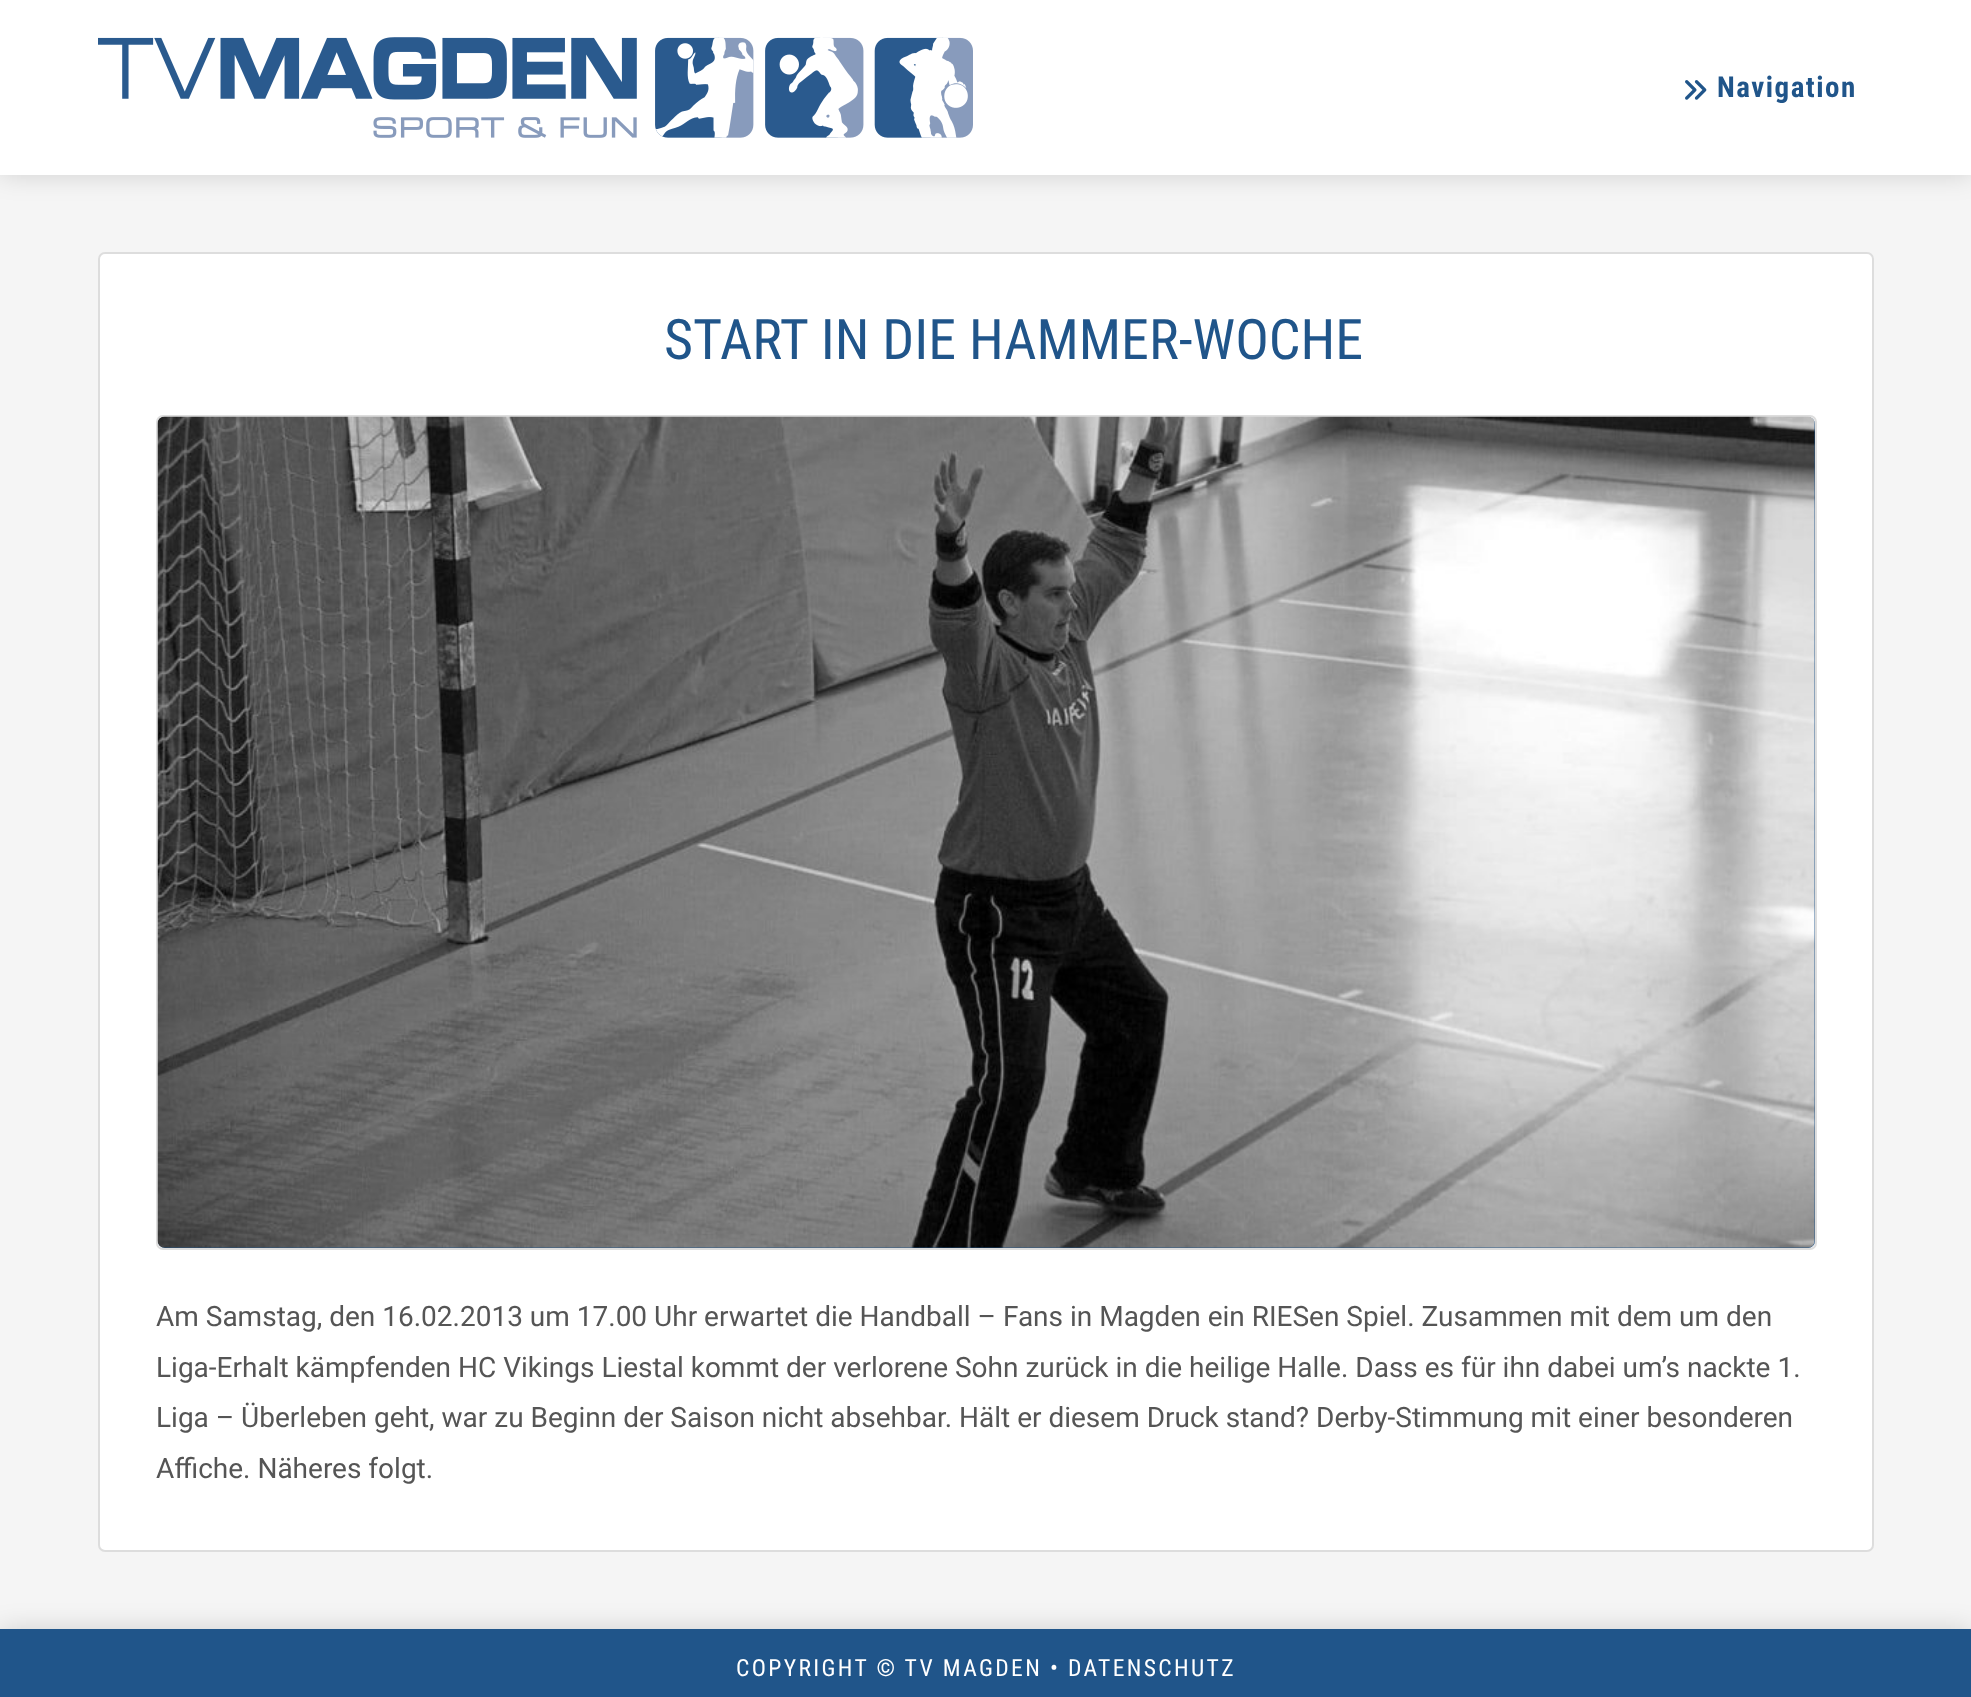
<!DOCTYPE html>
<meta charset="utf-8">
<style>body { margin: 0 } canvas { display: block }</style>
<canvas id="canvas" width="1971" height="1697"></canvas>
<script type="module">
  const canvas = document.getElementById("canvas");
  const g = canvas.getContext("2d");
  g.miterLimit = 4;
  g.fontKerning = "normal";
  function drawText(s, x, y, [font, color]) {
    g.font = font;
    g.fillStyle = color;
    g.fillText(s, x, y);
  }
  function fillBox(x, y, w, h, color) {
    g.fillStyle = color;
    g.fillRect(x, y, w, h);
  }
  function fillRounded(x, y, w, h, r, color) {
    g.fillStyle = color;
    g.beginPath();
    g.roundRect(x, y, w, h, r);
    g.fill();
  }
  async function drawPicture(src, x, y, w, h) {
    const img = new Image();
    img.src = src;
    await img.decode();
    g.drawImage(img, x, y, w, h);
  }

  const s1 = ["bold 29px Roboto Condensed", "#20558A"];
  const s2 = ["56px Roboto Condensed", "#20558A"];
  const s3 = ["28px Roboto", "#555555"];
  const s4 = ["23.6px Roboto Condensed", "#FFFFFF"];

  fillBox(0, 0, 1971, 1697, "#F5F5F5");
  g.fillStyle = "rgba(0, 0, 0, 0.15)";
  g.filter = "blur(13px)";
  g.beginPath();
  g.rect(0, 0, 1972, 175);
  g.fill();
  g.filter = "none";
  fillBox(0, 0, 1971, 175, "#FFFFFF");
  await drawPicture("pic1.png", 98, 37, 875, 101);
  await drawPicture("pic2.png", 1685, 80, 22, 20);
  g.letterSpacing = "1.5px";
  drawText("Navigation", 1717, 97, s1);
  g.fillStyle = "#FFFFFF";
  g.beginPath();
  g.roundRect(99, 253, 1774, 1298, 6);
  g.fill();
  g.strokeStyle = "#DDDDDD";
  g.lineWidth = 2;
  g.stroke();
  g.letterSpacing = "0px";
  drawText("START IN DIE HAMMER-WOCHE", 664, 359, s2);
  g.beginPath();
  g.roundRect(157, 416, 1659, 833, 6);
  g.stroke();
  fillRounded(158, 417, 1657, 831, 7, "#20558A");
  await drawPicture("pic3.png", 157, 416, 1658, 832);
  drawText("Am Samstag, den 16.02.2013 um 17.00 Uhr erwartet die Handball – Fans in Magden ein RIESen Spiel. Zusammen mit dem um den", 156, 1326, s3);
  drawText("Liga-Erhalt kämpfenden HC Vikings Liestal kommt der verlorene Sohn zurück in die heilige Halle. Dass es für ihn dabei um’s nackte 1.", 156, 1377, s3);
  drawText("Liga – Überleben geht, war zu Beginn der Saison nicht absehbar. Hält er diesem Druck stand? Derby-Stimmung mit einer besonderen", 156, 1427, s3);
  drawText("Affiche. Näheres folgt.", 156, 1478, s3);
  g.fillStyle = "rgba(0, 0, 0, 0.15)";
  g.filter = "blur(13px)";
  g.beginPath();
  g.rect(0, 1629, 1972, 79);
  g.fill();
  g.filter = "none";
  fillBox(0, 1629, 1971, 68, "#20558A");
  g.letterSpacing = "2.35px";
  drawText("COPYRIGHT © TV MAGDEN • DATENSCHUTZ", 736, 1676, s4);
</script>
